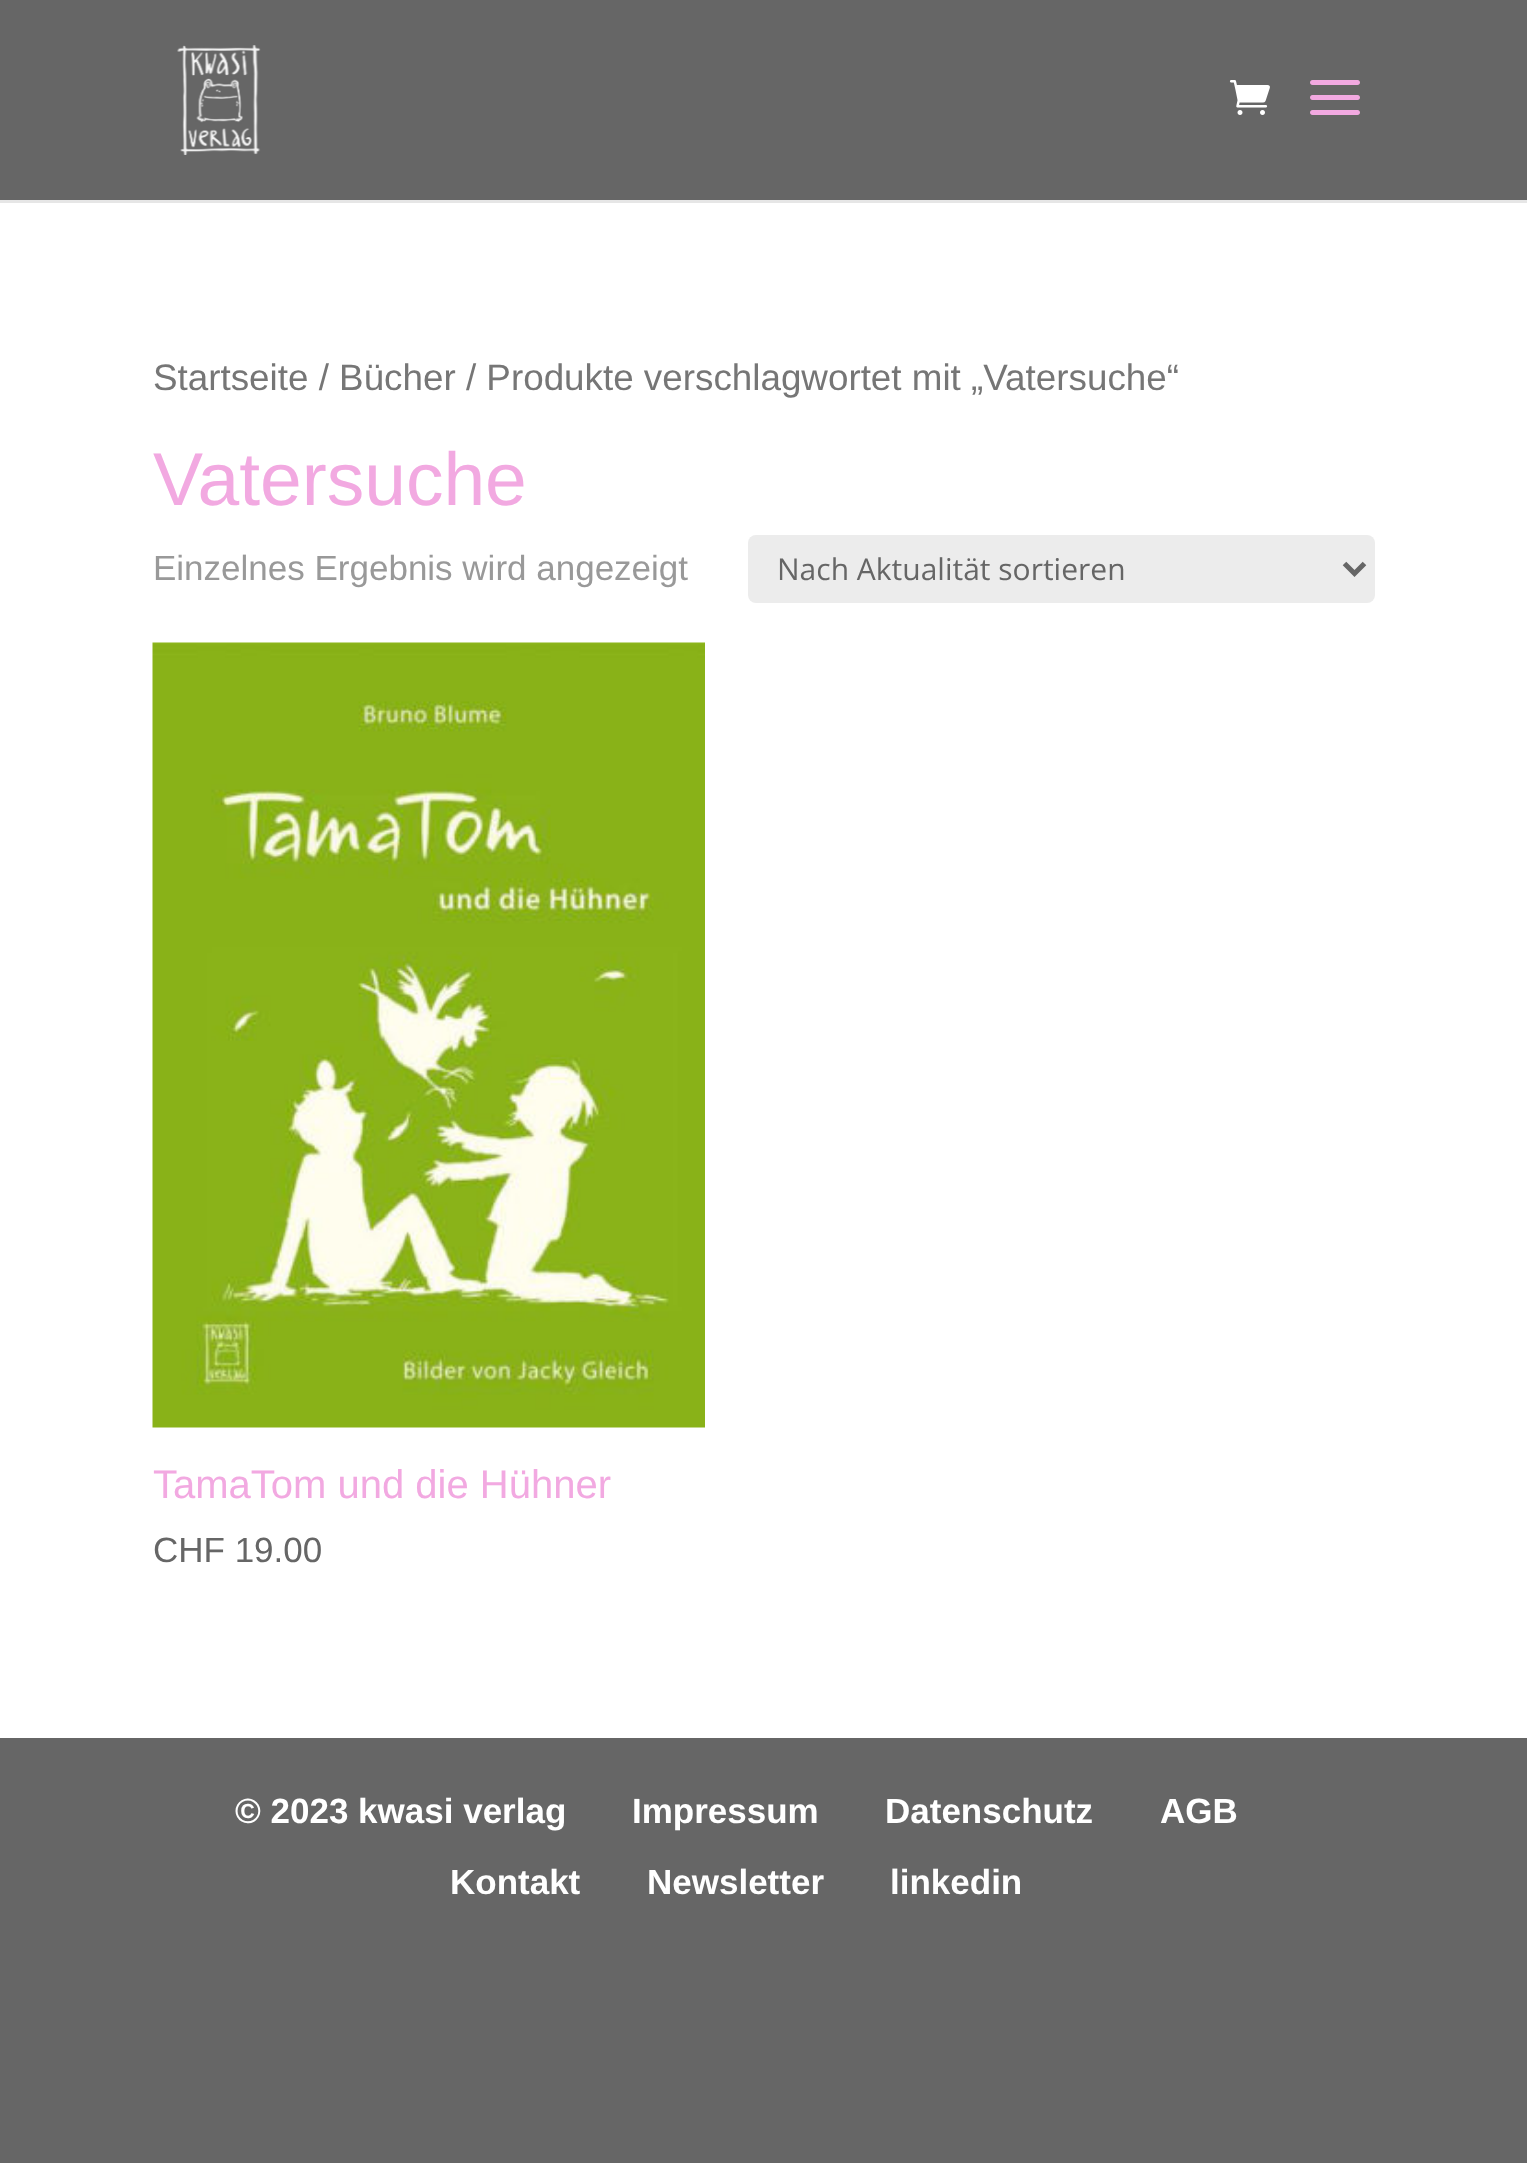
<!DOCTYPE html>
<meta charset="utf-8">
<style>body { margin: 0 } canvas { display: block }</style>
<canvas id="canvas" width="1527" height="2163"></canvas>
<script type="module">
  const canvas = document.getElementById("canvas");
  const g = canvas.getContext("2d");
  g.miterLimit = 4;
  g.fontKerning = "normal";
  function drawText(s, x, y, [font, color]) {
    g.font = font;
    g.fillStyle = color;
    g.fillText(s, x, y);
  }
  function fillBox(x, y, w, h, color) {
    g.fillStyle = color;
    g.fillRect(x, y, w, h);
  }
  function fillRounded(x, y, w, h, r, color) {
    g.fillStyle = color;
    g.beginPath();
    g.roundRect(x, y, w, h, r);
    g.fill();
  }
  async function drawPicture(src, x, y, w, h) {
    const img = new Image();
    img.src = src;
    await img.decode();
    g.drawImage(img, x, y, w, h);
  }

  const s1 = ["36.8px Liberation Sans", "#767676"];
  const s2 = ["75px Liberation Sans", "#F2A9E1"];
  const s3 = ["35px Liberation Sans", "#999999"];
  const s4 = ["30px Open Sans", "#666666"];
  const s5 = ["40px Liberation Sans", "#F2A9E1"];
  const s6 = ["35px Liberation Sans", "#666666"];
  const s7 = ["bold 35px Liberation Sans", "#FFFFFF"];

  fillBox(0, 0, 1527, 2163, "#666666");
  g.fillStyle = "#E6E6E6";
  g.beginPath();
  g.moveTo(0, 200);
  g.lineTo(0, 203);
  g.lineTo(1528, 203);
  g.lineTo(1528, 3);
  g.lineTo(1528, 200);
  g.closePath();
  g.fill();
  await drawPicture("pic1.png", 177, 45, 84, 110);
  await drawPicture("pic2.png", 1229, 80, 41, 35);
  await drawPicture("pic3.png", 1310, 80, 50, 35);
  fillBox(0, 203, 1527, 1535, "#FFFFFF");
  drawText("Startseite / Bücher / Produkte verschlagwortet mit „Vatersuche“", 153, 390, s1);
  drawText("Vatersuche", 153, 505, s2);
  drawText("Einzelnes Ergebnis wird angezeigt", 153, 580, s3);
  fillRounded(748, 535, 627, 68, 8, "#ECECEC");
  g.beginPath();
  g.moveTo(1344.5, 563.5);
  g.lineTo(1354.5, 573.5);
  g.lineTo(1364.5, 563.5);
  g.strokeStyle = "#666666";
  g.lineWidth = 5;
  g.stroke();
  drawText("Nach Aktualität sortieren", 777, 580, s4);
  await drawPicture("pic4.png", 152, 642, 553, 786);
  drawText("TamaTom und die Hühner", 153, 1498, s5);
  drawText("CHF 19.00", 153, 1562, s6);
  drawText("© 2023 kwasi verlag", 235, 1823, s7);
  drawText("Impressum", 632, 1823, s7);
  drawText("Datenschutz", 885, 1823, s7);
  drawText("AGB", 1160, 1823, s7);
  drawText("Kontakt", 450, 1894, s7);
  drawText("Newsletter", 647, 1894, s7);
  drawText("linkedin", 890, 1894, s7);
</script>
